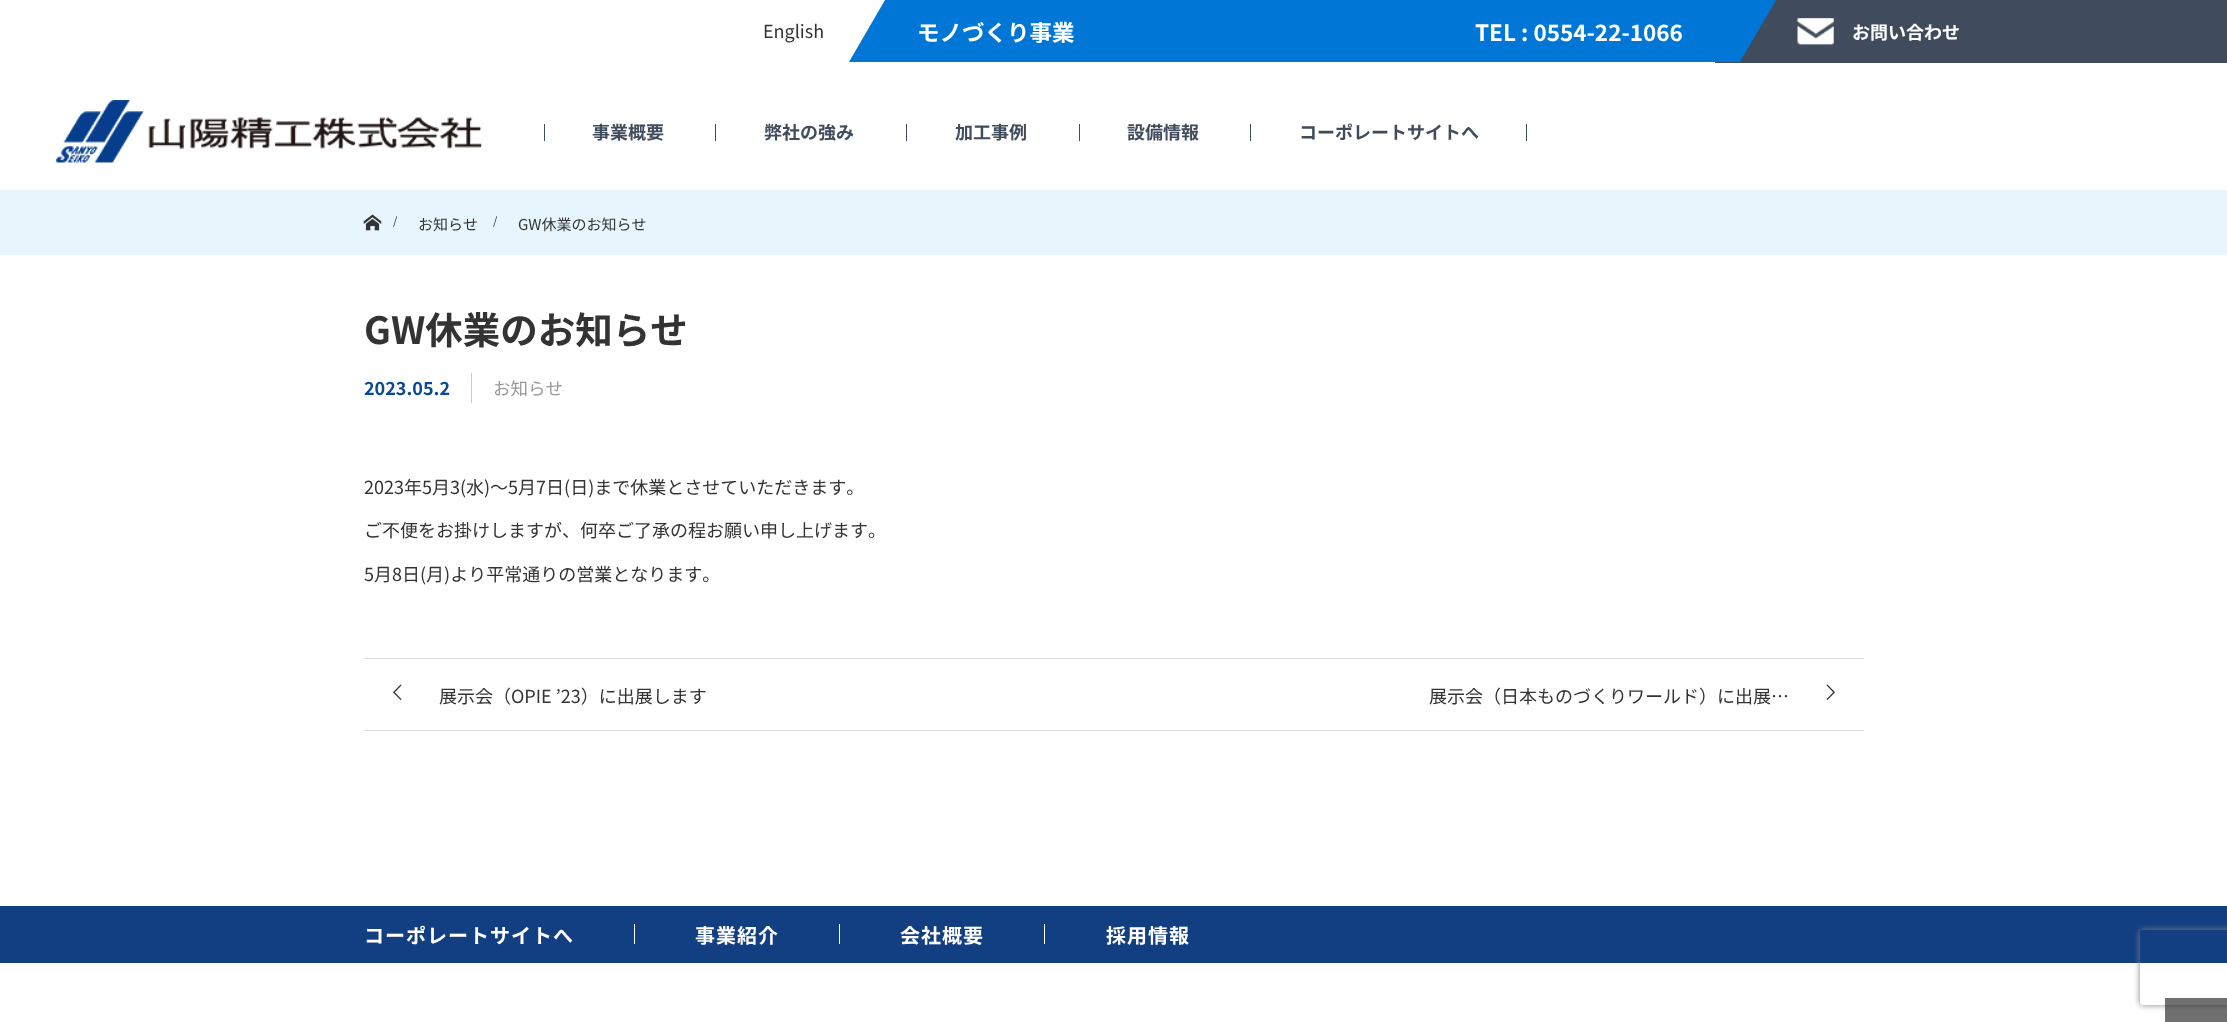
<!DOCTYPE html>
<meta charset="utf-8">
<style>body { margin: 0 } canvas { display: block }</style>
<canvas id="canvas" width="2227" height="1022"></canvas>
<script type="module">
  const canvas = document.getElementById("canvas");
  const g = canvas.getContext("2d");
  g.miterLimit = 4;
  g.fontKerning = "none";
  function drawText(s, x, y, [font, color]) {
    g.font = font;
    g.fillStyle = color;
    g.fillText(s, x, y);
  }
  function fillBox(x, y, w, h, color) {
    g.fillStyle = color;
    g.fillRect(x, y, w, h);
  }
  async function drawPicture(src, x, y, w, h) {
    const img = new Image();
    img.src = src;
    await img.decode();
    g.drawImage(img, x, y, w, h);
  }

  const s1 = ["18px Noto Sans JP", "#333333"];
  const s2 = ["bold 22.5px Noto Sans JP", "#FFFFFF"];
  const s3 = ["bold 18px Noto Sans JP", "#FFFFFF"];
  const s4 = ["bold 18px Noto Sans JP", "#404C5B"];
  const s5 = ["11px Noto Sans JP", "#333333"];
  const s6 = ["15px Noto Sans JP", "#333333"];
  const s7 = ["bold 37.5px Noto Sans JP", "#333333"];
  const s8 = ["bold 18px Noto Sans JP", "#084A93"];
  const s9 = ["17.5px Noto Sans JP", "#999999"];
  const s10 = ["bold 20px Noto Sans JP", "#FFFFFF"];

  fillBox(0, 0, 2227, 1022, "#FFFFFF");
  drawText("English", 763, 38, s1);
  fillBox(1715, 0, 512, 63, "#404C5B");
  g.fillStyle = "#0077D6";
  g.beginPath();
  g.moveTo(885, 0);
  g.lineTo(1776, 0);
  g.lineTo(1740, 62);
  g.lineTo(849, 62);
  g.closePath();
  g.fill();
  drawText("モノづくり事業", 917, 41, s2);
  drawText("TEL : 0554-22-1066", 1475, 41, s2);
  await drawPicture("pic1.png", 1797, 18, 37, 27);
  drawText("お問い合わせ", 1852, 39, s3);
  await drawPicture("pic2.png", 56, 100, 426, 63);
  fillBox(1526, 124, 1, 17, "#404C5B");
  fillBox(544, 124, 1, 17, "#404C5B");
  drawText("事業概要", 592, 139, s4);
  fillBox(715, 124, 1, 17, "#404C5B");
  drawText("弊社の強み", 764, 139, s4);
  fillBox(906, 124, 1, 17, "#404C5B");
  drawText("加工事例", 955, 139, s4);
  fillBox(1079, 124, 1, 17, "#404C5B");
  drawText("設備情報", 1127, 139, s4);
  fillBox(1250, 124, 1, 17, "#404C5B");
  drawText("コーポレートサイトへ", 1299, 139, s4);
  fillBox(0, 190, 2227, 65, "#E6F6FC");
  await drawPicture("pic3.png", 363, 214, 19, 17);
  drawText("/", 393, 225, s5);
  drawText("お知らせ", 418, 230, s6);
  drawText("/", 493, 225, s5);
  drawText("GW休業のお知らせ", 518, 230, s6);
  drawText("GW休業のお知らせ", 364, 344, s7);
  drawText("2023.05.2", 364, 395, s8);
  fillBox(471, 373, 1, 30, "#CCCCCC");
  drawText("お知らせ", 493, 395, s9);
  drawText("2023年5月3(水)～5月7日(日)まで休業とさせていただきます。", 364, 494, s1);
  drawText("ご不便をお掛けしますが、何卒ご了承の程お願い申し上げます。", 364, 537, s1);
  drawText("5月8日(月)より平常通りの営業となります。", 364, 581, s1);
  fillBox(364, 658, 1500, 1, "#DDDDDD");
  fillBox(364, 730, 1500, 1, "#DDDDDD");
  await drawPicture("pic4.png", 393, 684, 9, 16);
  drawText("展示会（OPIE ’23）に出展します", 439, 703, s1);
  drawText("展示会（日本ものづくりワールド）に出展…", 1429, 703, s1);
  await drawPicture("pic5.png", 1826, 684, 9, 16);
  fillBox(0, 906, 2227, 57, "#123F82");
  g.letterSpacing = "1px";
  drawText("コーポレートサイトへ", 364, 943, s10);
  fillBox(634, 924, 1, 20, "#FFFFFF");
  drawText("事業紹介", 695, 943, s10);
  fillBox(839, 924, 1, 20, "#FFFFFF");
  drawText("会社概要", 900, 943, s10);
  fillBox(1044, 924, 1, 20, "#FFFFFF");
  drawText("採用情報", 1106, 943, s10);
  g.save();
  g.beginPath();
  g.moveTo(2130, 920);
  g.lineTo(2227, 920);
  g.lineTo(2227, 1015);
  g.lineTo(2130, 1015);
  g.closePath();
  g.moveTo(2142.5, 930);
  g.lineTo(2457.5, 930);
  g.bezierCurveTo(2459, 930, 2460, 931, 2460, 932.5);
  g.lineTo(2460, 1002.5);
  g.bezierCurveTo(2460, 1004, 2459, 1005, 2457.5, 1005);
  g.lineTo(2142.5, 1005);
  g.bezierCurveTo(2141, 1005, 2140, 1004, 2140, 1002.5);
  g.lineTo(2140, 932.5);
  g.bezierCurveTo(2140, 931, 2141, 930, 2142.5, 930);
  g.closePath();
  g.clip("evenodd");
  g.fillStyle = "#808080";
  g.filter = "blur(3px)";
  g.beginPath();
  g.roundRect(2140, 930, 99, 75, 2.5);
  g.fill();
  g.filter = "none";
  g.restore();
  fillBox(2165, 998, 62, 24, "rgba(51, 51, 51, 0.7)");
</script>
